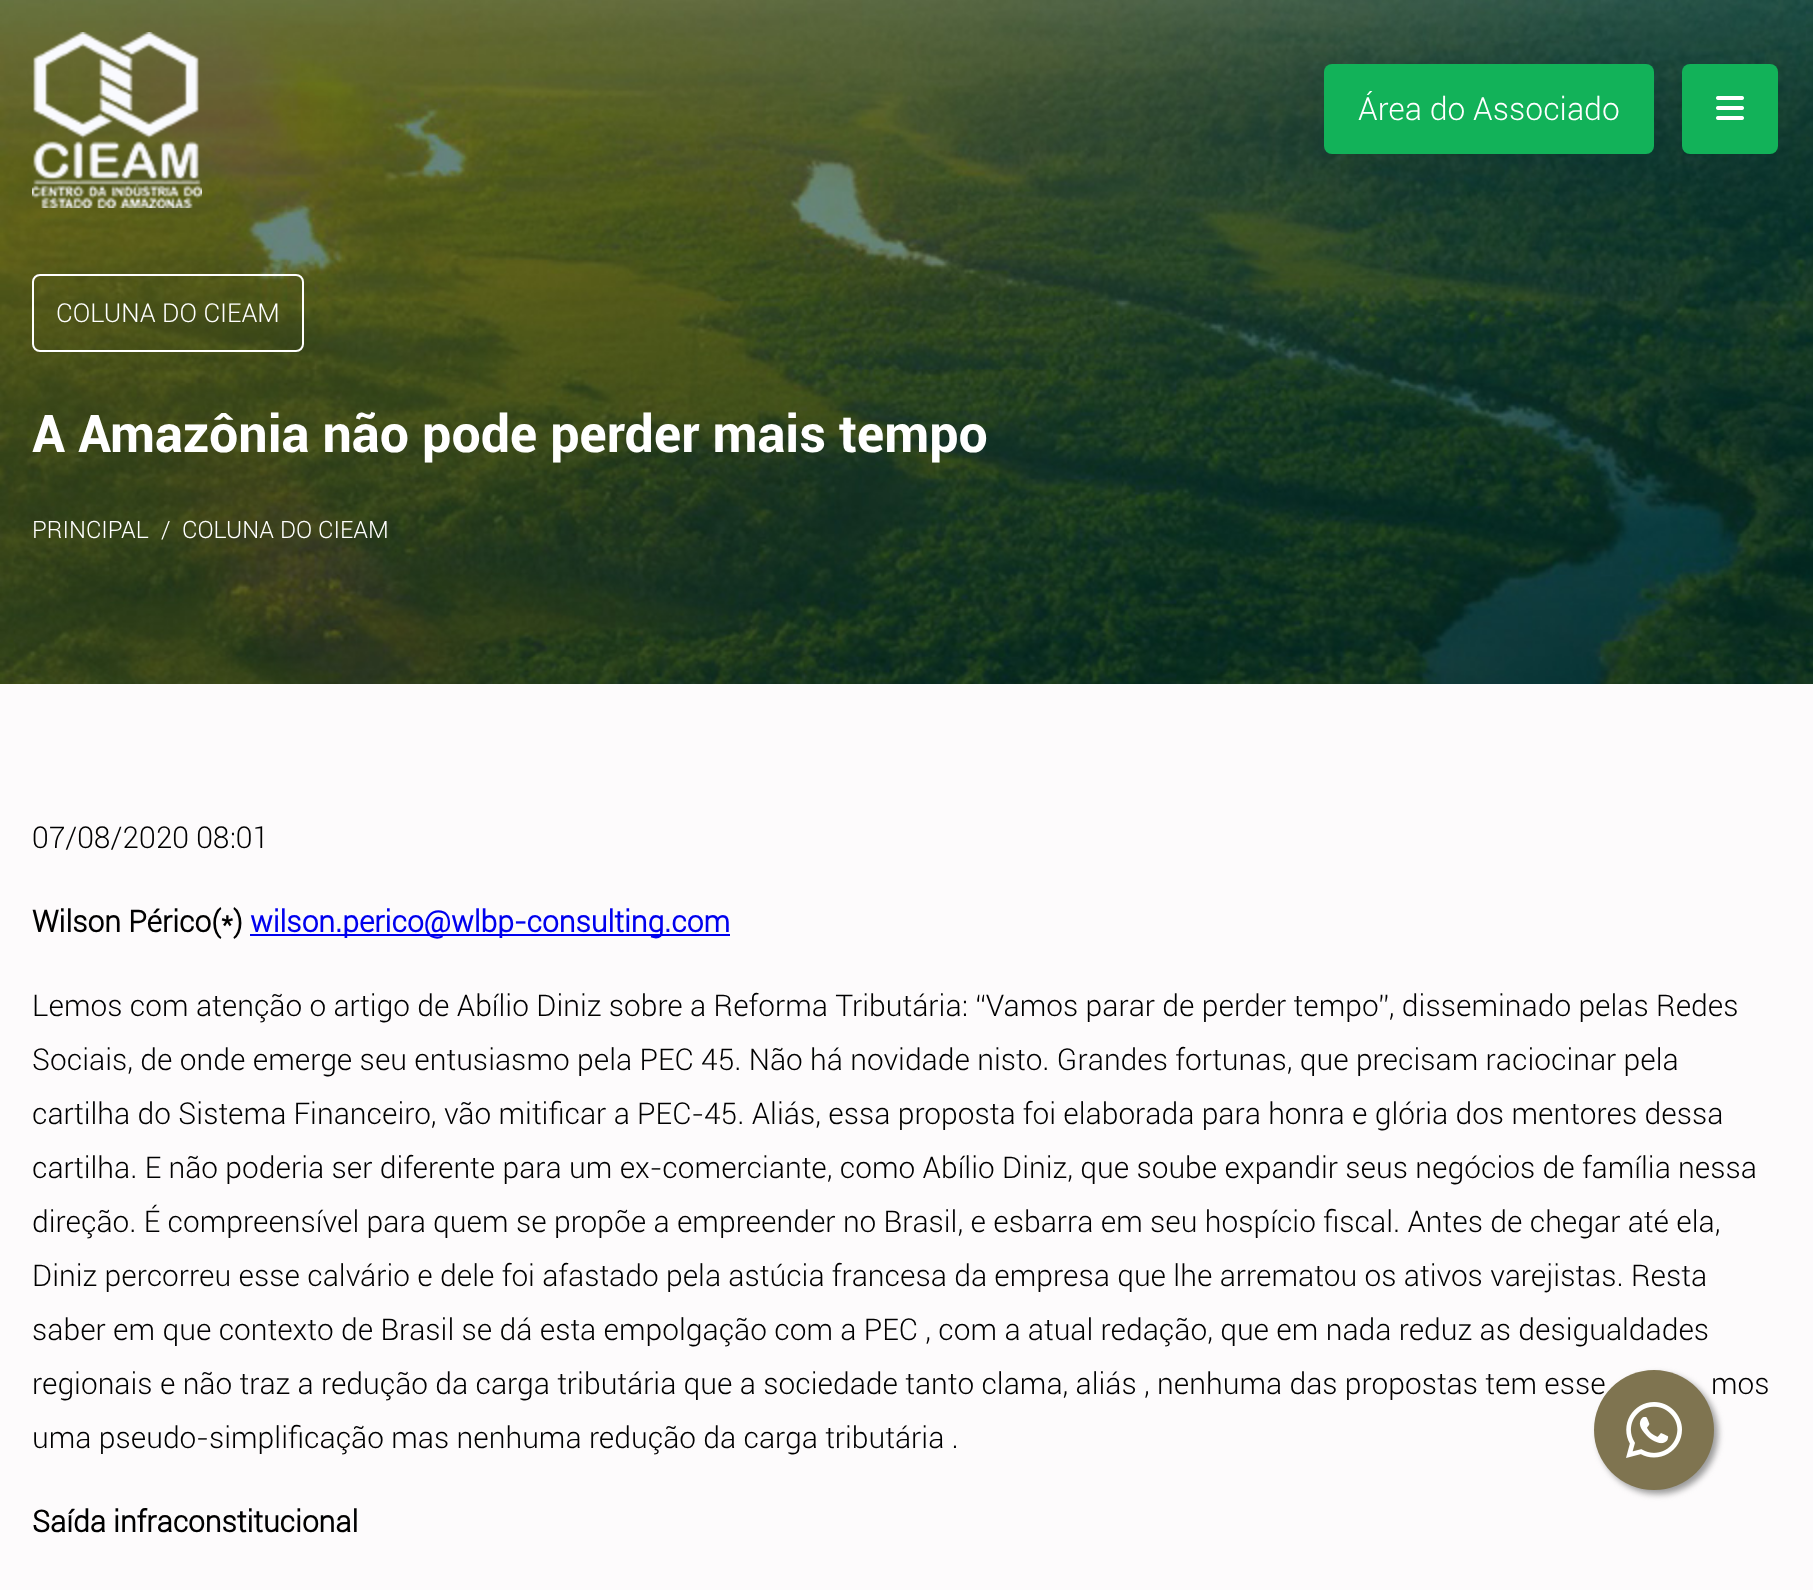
<!DOCTYPE html>
<meta charset="utf-8">
<style>body { margin: 0 } canvas { display: block }</style>
<canvas id="canvas" width="1813" height="1590"></canvas>
<script type="module">
  const canvas = document.getElementById("canvas");
  const g = canvas.getContext("2d");
  g.miterLimit = 4;
  g.fontKerning = "normal";
  function drawText(s, x, y, [font, color]) {
    g.font = font;
    g.fillStyle = color;
    g.fillText(s, x, y);
  }
  function fillBox(x, y, w, h, color) {
    g.fillStyle = color;
    g.fillRect(x, y, w, h);
  }
  function fillRounded(x, y, w, h, r, color) {
    g.fillStyle = color;
    g.beginPath();
    g.roundRect(x, y, w, h, r);
    g.fill();
  }
  async function drawPicture(src, x, y, w, h) {
    const img = new Image();
    img.src = src;
    await img.decode();
    g.drawImage(img, x, y, w, h);
  }

  const s1 = ["300 32px Roboto", "#FFFFFF"];
  const s2 = ["300 26px Roboto", "#FFFFFF"];
  const s3 = ["bold 52px 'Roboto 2'", "#FFFFFF"];
  const s4 = ["300 24px Roboto", "#FFFFFF"];
  const s5 = ["300 30.02px Roboto", "#000000"];
  const s6 = ["bold 30.02px Roboto", "#000000"];
  const s7 = ["bold 30.02px Roboto", "#0000EE"];

  fillBox(0, 0, 1813, 1590, "#FDFBFC");
  await drawPicture("pic1.png", 0, 0, 1813, 684);
  await drawPicture("pic2.png", 32, 32, 170, 176);
  fillRounded(1324, 64, 330, 90, 8, "#12B259");
  drawText("Área do Associado", 1358, 120, s1);
  g.beginPath();
  g.roundRect(33, 275, 270, 76, 7);
  g.strokeStyle = "#FFFFFF";
  g.lineWidth = 2;
  g.stroke();
  drawText("COLUNA DO CIEAM", 56, 322, s2);
  drawText("A Amazônia não pode perder mais tempo", 32, 452, s3);
  drawText("PRINCIPAL", 32, 538, s4);
  drawText("/", 161, 538, s4);
  drawText("COLUNA DO CIEAM", 182, 538, s4);
  fillRounded(1682, 64, 96, 90, 8, "#12B259");
  await drawPicture("pic3.png", 1716, 96, 28, 24);
  drawText("07/08/2020 08:01", 32, 848, s5);
  drawText("Wilson Périco(*)", 32, 932, s6);
  fillBox(250, 934, 480, 2, "#0000EE");
  drawText("wilson.perico@wlbp-consulting.com", 250, 932, s7);
  drawText("Lemos com atenção o artigo de Abílio Diniz sobre a Reforma Tributária: “Vamos parar de perder tempo”, disseminado pelas Redes", 32, 1016, s5);
  drawText("Sociais, de onde emerge seu entusiasmo pela PEC 45. Não há novidade nisto. Grandes fortunas, que precisam raciocinar pela", 32, 1070, s5);
  drawText("cartilha do Sistema Financeiro, vão mitificar a PEC-45. Aliás, essa proposta foi elaborada para honra e glória dos mentores dessa", 32, 1124, s5);
  drawText("cartilha. E não poderia ser diferente para um ex-comerciante, como Abílio Diniz, que soube expandir seus negócios de família nessa", 32, 1178, s5);
  drawText("direção. É compreensível para quem se propõe a empreender no Brasil, e esbarra em seu hospício fiscal. Antes de chegar até ela,", 32, 1232, s5);
  drawText("Diniz percorreu esse calvário e dele foi afastado pela astúcia francesa da empresa que lhe arrematou os ativos varejistas. Resta", 32, 1286, s5);
  drawText("saber em que contexto de Brasil se dá esta empolgação com a PEC , com a atual redação, que em nada reduz as desigualdades", 32, 1340, s5);
  drawText("regionais e não traz a redução da carga tributária que a sociedade tanto clama, aliás , nenhuma das propostas tem esse", 32, 1394, s5);
  drawText("mos", 1711, 1394, s5);
  drawText("uma pseudo-simplificação mas nenhuma redução da carga tributária .", 32, 1448, s5);
  drawText("Saída infraconstitucional", 32, 1532, s6);
  g.fillStyle = "#999999";
  g.filter = "blur(3px)";
  g.beginPath();
  g.roundRect(1598, 1374, 120, 120, 60);
  g.fill();
  g.filter = "none";
  g.fillStyle = "#7F7450";
  g.beginPath();
  g.arc(1654, 1430, 60, 0, Math.PI * 2);
  g.fill();
  await drawPicture("pic4.png", 1626, 1402, 56, 56);
</script>
